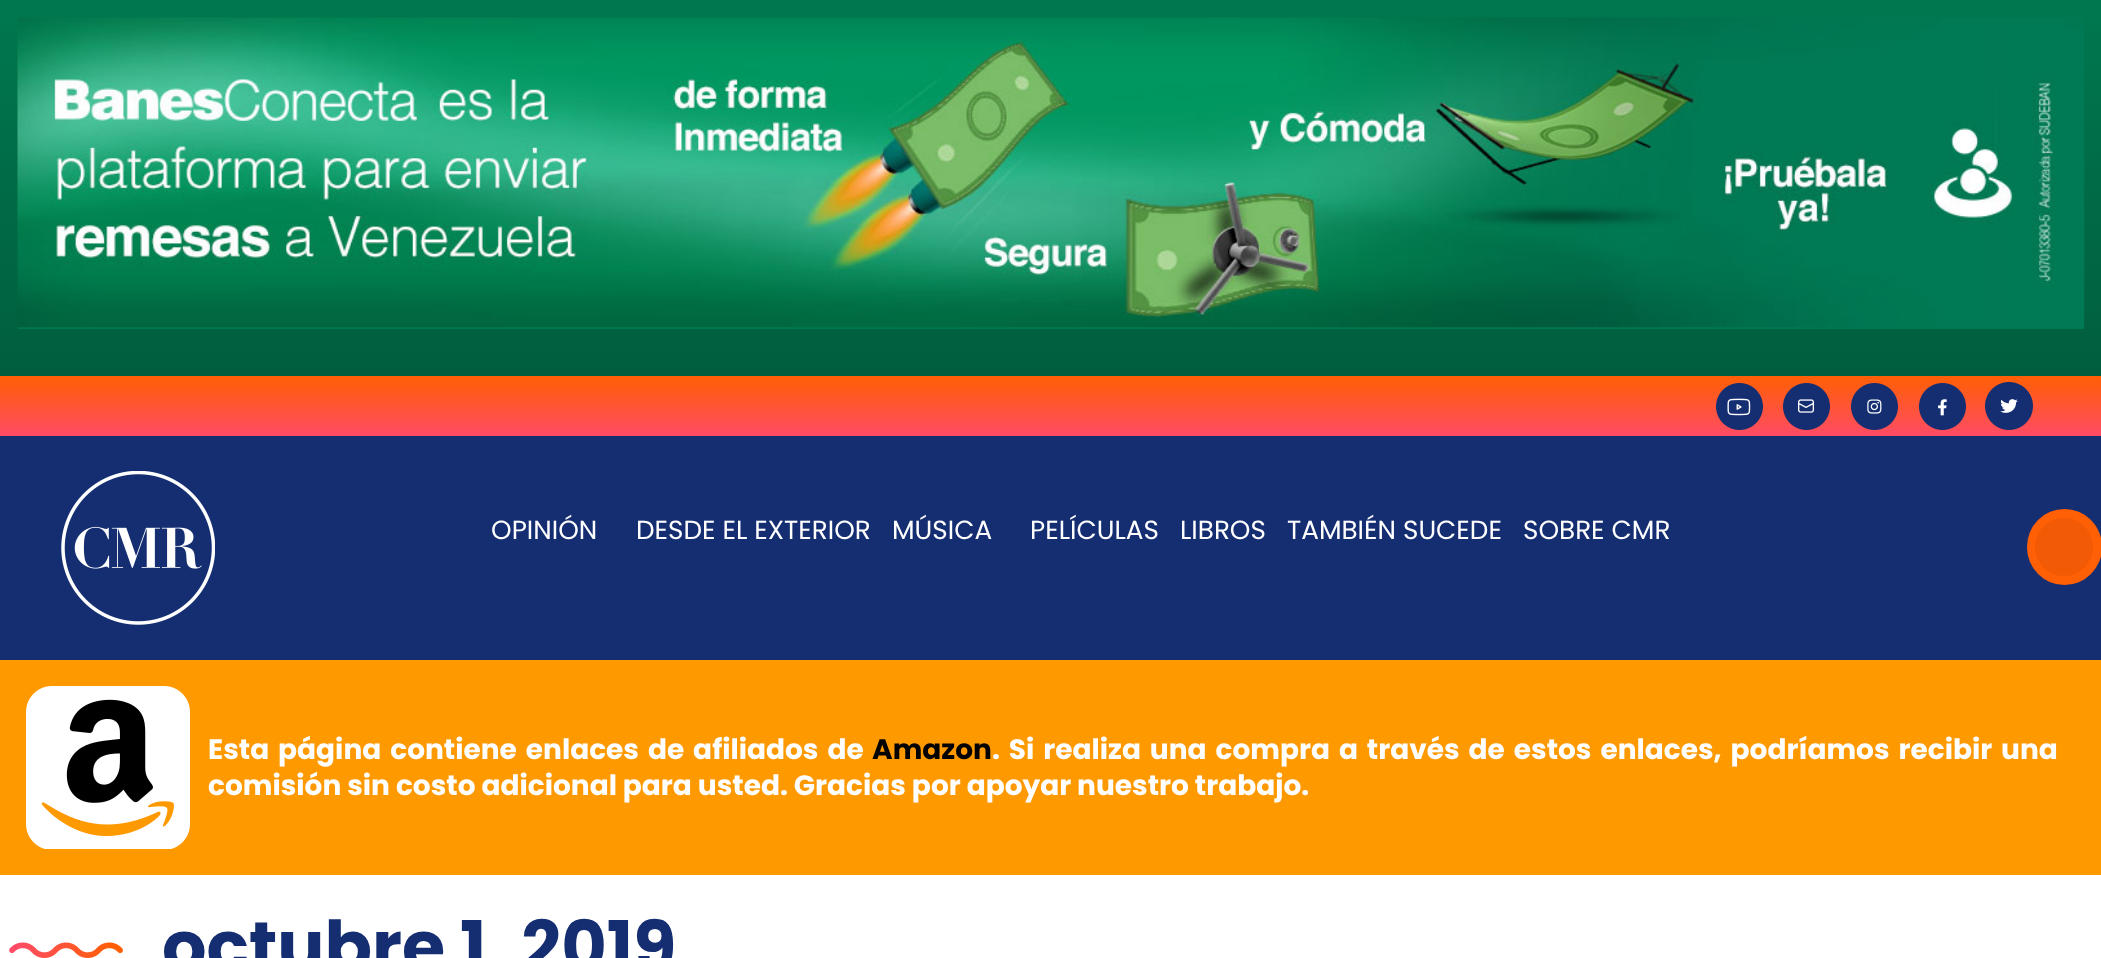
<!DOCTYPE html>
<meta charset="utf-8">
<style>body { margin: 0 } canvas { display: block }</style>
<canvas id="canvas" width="2101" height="958"></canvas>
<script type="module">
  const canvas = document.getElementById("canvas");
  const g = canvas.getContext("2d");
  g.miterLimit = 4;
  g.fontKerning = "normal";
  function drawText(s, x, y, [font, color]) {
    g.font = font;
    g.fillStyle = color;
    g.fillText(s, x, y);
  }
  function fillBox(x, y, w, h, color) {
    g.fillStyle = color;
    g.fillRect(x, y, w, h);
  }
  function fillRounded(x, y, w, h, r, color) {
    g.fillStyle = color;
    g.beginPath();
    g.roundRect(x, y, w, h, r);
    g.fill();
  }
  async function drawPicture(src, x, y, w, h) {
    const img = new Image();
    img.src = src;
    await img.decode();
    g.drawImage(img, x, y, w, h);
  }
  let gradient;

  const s1 = ["26.25px Poppins", "#FFFFFF"];
  const s2 = ["bold 28px Poppins", "#FFFFFF"];
  const s3 = ["bold 28px Poppins", "#000000"];
  const s4 = ["bold 70px Poppins", "#142E71"];

  fillBox(0, 0, 2101, 958, "#FFFFFF");
  gradient = g.createLinearGradient(1051, 0, 1051, 376);
  gradient.addColorStop(0, "#00784F");
  gradient.addColorStop(1, "#005E3E");
  g.fillStyle = gradient;
  g.fillRect(0, 0, 2101, 376);
  fillBox(18, 327, 2066, 2, "#00784F");
  await drawPicture("pic1.png", 17, 17, 2068, 311);
  gradient = g.createLinearGradient(1051, 376, 1051, 436);
  gradient.addColorStop(0, "#FF5F04");
  gradient.addColorStop(1, "#FF4B65");
  g.fillStyle = gradient;
  g.fillRect(0, 376, 2101, 60);
  await drawPicture("pic2.png", 1716, 383, 47, 47);
  await drawPicture("pic3.png", 1783, 383, 47, 47);
  await drawPicture("pic4.png", 1851, 383, 47, 47);
  await drawPicture("pic5.png", 1919, 383, 47, 47);
  await drawPicture("pic6.png", 1985, 382, 48, 48);
  fillBox(0, 436, 2101, 224, "#142E71");
  await drawPicture("pic7.png", 61, 471, 154, 154);
  drawText("OPINIÓN", 491, 539, s1);
  drawText("DESDE EL EXTERIOR", 636, 539, s1);
  drawText("MÚSICA", 892, 539, s1);
  drawText("PELÍCULAS", 1030, 539, s1);
  drawText("LIBROS", 1180, 539, s1);
  drawText("TAMBIÉN SUCEDE", 1287, 539, s1);
  drawText("SOBRE CMR", 1523, 539, s1);
  fillRounded(2027, 509, 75, 76, 37.5, "#FF5F05");
  g.fillStyle = "#F25A05";
  g.beginPath();
  g.arc(2064, 547, 29, 0, Math.PI * 2);
  g.fill();
  fillBox(0, 660, 2101, 215, "#FF9900");
  await drawPicture("pic8.png", 26, 686, 164, 163);
  g.wordSpacing = "3px";
  drawText("Esta página contiene enlaces de afiliados de", 208, 759, s2);
  g.wordSpacing = "0px";
  drawText("Amazon", 872, 759, s3);
  g.wordSpacing = "3px";
  drawText(". Si realiza una compra a través de estos enlaces, podríamos recibir una", 992, 759, s2);
  g.wordSpacing = "0px";
  drawText("comisión sin costo adicional para usted. Gracias por apoyar nuestro trabajo.", 208, 795, s2);
  await drawPicture("pic9.png", 9, 942, 114, 16);
  drawText("octubre 1, 2019", 162, 971, s4);
</script>
